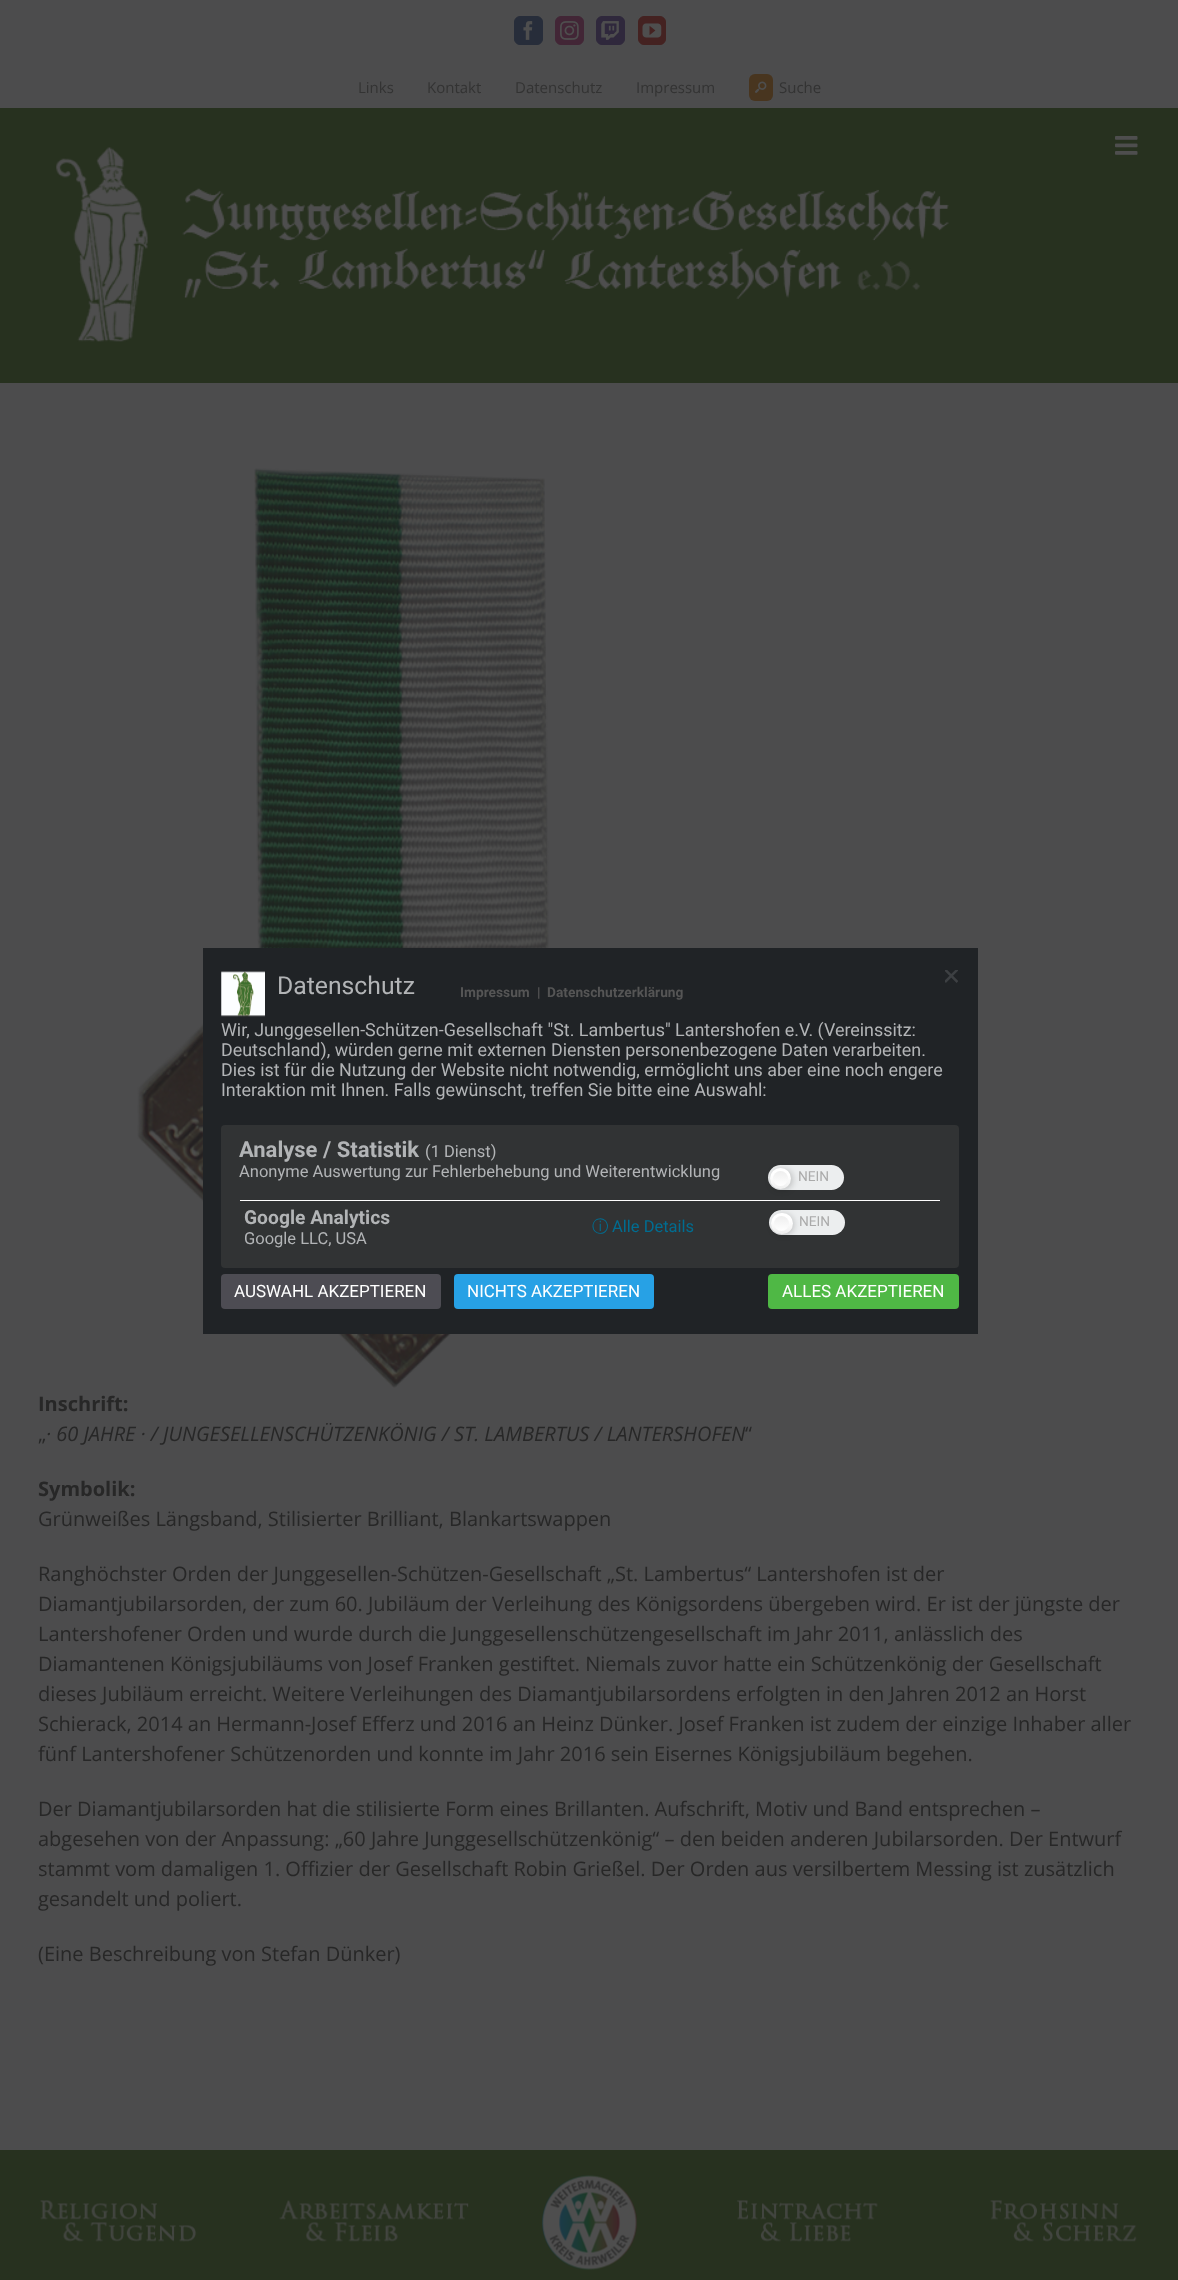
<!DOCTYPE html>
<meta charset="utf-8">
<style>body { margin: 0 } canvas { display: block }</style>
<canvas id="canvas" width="1178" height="2280"></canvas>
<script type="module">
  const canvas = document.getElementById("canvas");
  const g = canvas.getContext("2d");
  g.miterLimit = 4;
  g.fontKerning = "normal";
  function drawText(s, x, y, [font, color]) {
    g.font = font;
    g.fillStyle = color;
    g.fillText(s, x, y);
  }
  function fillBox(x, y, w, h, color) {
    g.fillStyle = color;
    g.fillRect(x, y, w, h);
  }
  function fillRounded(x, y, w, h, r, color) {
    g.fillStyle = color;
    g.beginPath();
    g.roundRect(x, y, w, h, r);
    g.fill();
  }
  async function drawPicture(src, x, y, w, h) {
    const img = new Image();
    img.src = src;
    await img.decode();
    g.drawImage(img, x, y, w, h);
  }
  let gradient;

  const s1 = ["15px Open Sans", "#333333"];
  const s2 = ["bold 20px Open Sans", "#272727"];
  const s3 = ["italic 20px Open Sans", "#272727"];
  const s4 = ["20px Open Sans", "#272727"];
  const s5 = ["24.75px Roboto", "#B2B4B6"];
  const s6 = ["bold 13.75px Roboto", "#555555"];
  const s7 = ["17.9px Roboto", "#B2B4B6"];
  const s8 = ["bold 22px Roboto", "#B2B4B6"];
  const s9 = ["16.5px Roboto", "#B2B4B6"];
  const s10 = ["13.75px Roboto", "#AAAAAA"];
  const s11 = ["bold 19.25px Roboto", "#B2B4B6"];
  const s12 = ["500 16.5px WenQuanYi Zen Hei", "#006D91"];
  const s13 = ["16.5px Roboto", "#006D91"];
  const s14 = ["17px Roboto", "#FFFFFF"];

  fillBox(0, 0, 1178, 2280, "#4C4C4D");
  g.fillStyle = "#272D3A";
  g.beginPath();
  g.roundRect(514.5, 16.5, 28, 28, 5.5);
  g.fill();
  g.strokeStyle = "#272D3A";
  g.stroke();
  await drawPicture("pic1.png", 523, 21, 10, 19);
  g.fillStyle = "#422636";
  g.beginPath();
  g.roundRect(555.5, 16.5, 28, 28, 5.5);
  g.fill();
  g.strokeStyle = "#422636";
  g.stroke();
  await drawPicture("pic2.png", 560, 21, 19, 19);
  g.fillStyle = "#2F283C";
  g.beginPath();
  g.roundRect(596.5, 16.5, 28, 28, 5.5);
  g.fill();
  g.strokeStyle = "#2F283C";
  g.stroke();
  await drawPicture("pic3.png", 601, 21, 18, 19);
  g.fillStyle = "#442221";
  g.beginPath();
  g.roundRect(638.5, 16.5, 27, 28, 5.5);
  g.fill();
  g.strokeStyle = "#442221";
  g.stroke();
  await drawPicture("pic4.png", 642, 23, 20, 15);
  drawText("Links", 358, 93, s1);
  drawText("Kontakt", 427, 93, s1);
  drawText("Datenschutz", 515, 93, s1);
  drawText("Impressum", 636, 93, s1);
  fillRounded(749, 74, 24, 27, 6, "#48351F");
  await drawPicture("pic5.png", 755, 81, 12, 12);
  drawText("Suche", 779, 93, s1);
  fillBox(0, 108, 1178, 275, "#27311F");
  await drawPicture("pic6.png", 56, 147, 893, 195);
  await drawPicture("pic7.png", 1115, 136, 23, 19);
  await drawPicture("pic8.png", 137, 468, 412, 920);
  drawText("Inschrift:", 38, 1411, s2);
  drawText("· 60 JAHRE · / JUNGESELLENSCHÜTZENKÖNIG / ST. LAMBERTUS / LANTERSHOFEN", 46, 1441, s3);
  drawText("“", 745, 1441, s4);
  drawText("„", 38, 1441, s4);
  drawText("Symbolik:", 38, 1496, s2);
  drawText("Grünweißes Längsband, Stilisierter Brilliant, Blankartswappen", 38, 1526, s4);
  drawText("Ranghöchster Orden der Junggesellen-Schützen-Gesellschaft „St. Lambertus“ Lantershofen ist der", 38, 1581, s4);
  drawText("Diamantjubilarsorden, der zum 60. Jubiläum der Verleihung des Königsordens übergeben wird. Er ist der jüngste der", 38, 1611, s4);
  drawText("Lantershofener Orden und wurde durch die Junggesellenschützengesellschaft im Jahr 2011, anlässlich des", 38, 1641, s4);
  drawText("Diamantenen Königsjubiläums von Josef Franken gestiftet. Niemals zuvor hatte ein Schützenkönig der Gesellschaft", 38, 1671, s4);
  drawText("dieses Jubiläum erreicht. Weitere Verleihungen des Diamantjubilarsordens erfolgten in den Jahren 2012 an Horst", 38, 1701, s4);
  drawText("Schierack, 2014 an Hermann-Josef Efferz und 2016 an Heinz Dünker. Josef Franken ist zudem der einzige Inhaber aller", 38, 1731, s4);
  drawText("fünf Lantershofener Schützenorden und konnte im Jahr 2016 sein Eisernes Königsjubiläum begehen.", 38, 1761, s4);
  drawText("Der Diamantjubilarsorden hat die stilisierte Form eines Brillanten. Aufschrift, Motiv und Band entsprechen –", 38, 1816, s4);
  drawText("abgesehen von der Anpassung: „60 Jahre Junggesellschützenkönig“ – den beiden anderen Jubilarsorden. Der Entwurf", 38, 1846, s4);
  drawText("stammt vom damaligen 1. Offizier der Gesellschaft Robin Grießel. Der Orden aus versilbertem Messing ist zusätzlich", 38, 1876, s4);
  drawText("gesandelt und poliert.", 38, 1906, s4);
  drawText("(Eine Beschreibung von Stefan Dünker)", 38, 1961, s4);
  fillBox(0, 2150, 1178, 130, "#27311F");
  await drawPicture("pic9.png", 40, 2175, 1097, 95);
  fillBox(203, 948, 775, 386, "#202326");
  await drawPicture("pic10.png", 221, 971, 44, 46);
  drawText("Datenschutz", 277, 994, s5);
  drawText("Impressum", 460, 997, s6);
  drawText("|", 537, 997, s6);
  drawText("Datenschutzerklärung", 547, 997, s6);
  g.save();
  g.beginPath();
  g.rect(945, 970, 13, 13);
  g.clip();
  g.beginPath();
  g.moveTo(945, 969.5);
  g.lineTo(957.5, 982);
  g.moveTo(945, 982);
  g.lineTo(957.5, 969.5);
  g.strokeStyle = "#3D4043";
  g.lineWidth = 2.5;
  g.stroke();
  g.restore();
  drawText("Wir, Junggesellen-Schützen-Gesellschaft \"St. Lambertus\" Lantershofen e.V. (Vereinssitz:", 221, 1036, s7);
  drawText("Deutschland), würden gerne mit externen Diensten personenbezogene Daten verarbeiten.", 221, 1056, s7);
  drawText("Dies ist für die Nutzung der Website nicht notwendig, ermöglicht uns aber eine noch engere", 221, 1076, s7);
  drawText("Interaktion mit Ihnen. Falls gewünscht, treffen Sie bitte eine Auswahl:", 221, 1096, s7);
  fillRounded(221, 1125, 738, 143, 4, "#313334");
  drawText("Analyse / Statistik", 239, 1157, s8);
  drawText("(1 Dienst)", 425, 1157, s9);
  drawText("Anonyme Auswertung zur Fehlerbehebung und Weiterentwicklung", 239, 1177, s9);
  fillRounded(768, 1165, 76, 25, 12.5, "#ECEEEF");
  g.fillStyle = "rgba(0, 0, 0, 0.2)";
  g.filter = "blur(3px)";
  g.beginPath();
  g.roundRect(771, 1169, 22, 21, 10.5);
  g.fill();
  g.filter = "none";
  gradient = g.createLinearGradient(781, 1167, 781, 1188);
  gradient.addColorStop(0.4, "#FFFFFF");
  gradient.addColorStop(1, "#F0F0F0");
  g.fillStyle = gradient;
  g.beginPath();
  g.arc(780.5, 1178.5, 10.5, 0, Math.PI * 2);
  g.fill();
  gradient = g.createLinearGradient(780, 1171, 780, 1186);
  gradient.addColorStop(0, "#EEEEEE");
  gradient.addColorStop(1, "#FFFFFF");
  g.fillStyle = gradient;
  g.beginPath();
  g.arc(780.5, 1178.5, 7.5, 0, Math.PI * 2);
  g.fill();
  drawText("NEIN", 798, 1181, s10);
  fillBox(240, 1200, 700, 1, "#FFFFFF");
  drawText("Google Analytics", 244, 1224, s11);
  drawText("Google LLC, USA", 244, 1244, s9);
  drawText("ⓘ", 592, 1232, s12);
  drawText("Alle Details", 612, 1232, s13);
  fillRounded(769, 1210, 76, 25, 12.5, "#ECEEEF");
  g.fillStyle = "rgba(0, 0, 0, 0.2)";
  g.filter = "blur(3px)";
  g.beginPath();
  g.roundRect(773, 1214, 21, 21, 10.5);
  g.fill();
  g.filter = "none";
  gradient = g.createLinearGradient(782, 1212, 782, 1233);
  gradient.addColorStop(0.4, "#FFFFFF");
  gradient.addColorStop(1, "#F0F0F0");
  g.fillStyle = gradient;
  g.beginPath();
  g.roundRect(771, 1213, 22, 21, 10.5);
  g.fill();
  gradient = g.createLinearGradient(781, 1216, 781, 1231);
  gradient.addColorStop(0, "#EEEEEE");
  gradient.addColorStop(1, "#FFFFFF");
  g.fillStyle = gradient;
  g.beginPath();
  g.arc(781.5, 1223.5, 7.5, 0, Math.PI * 2);
  g.fill();
  drawText("NEIN", 799, 1226, s10);
  fillRounded(221, 1274, 220, 35, 4, "#4D4C53");
  drawText("AUSWAHL AKZEPTIEREN", 234, 1297, s14);
  fillRounded(454, 1274, 200, 35, 4, "#27A1E5");
  drawText("NICHTS AKZEPTIEREN", 467, 1297, s14);
  fillRounded(768, 1274, 191, 35, 4, "#4FB845");
  drawText("ALLES AKZEPTIEREN", 782, 1297, s14);
</script>
